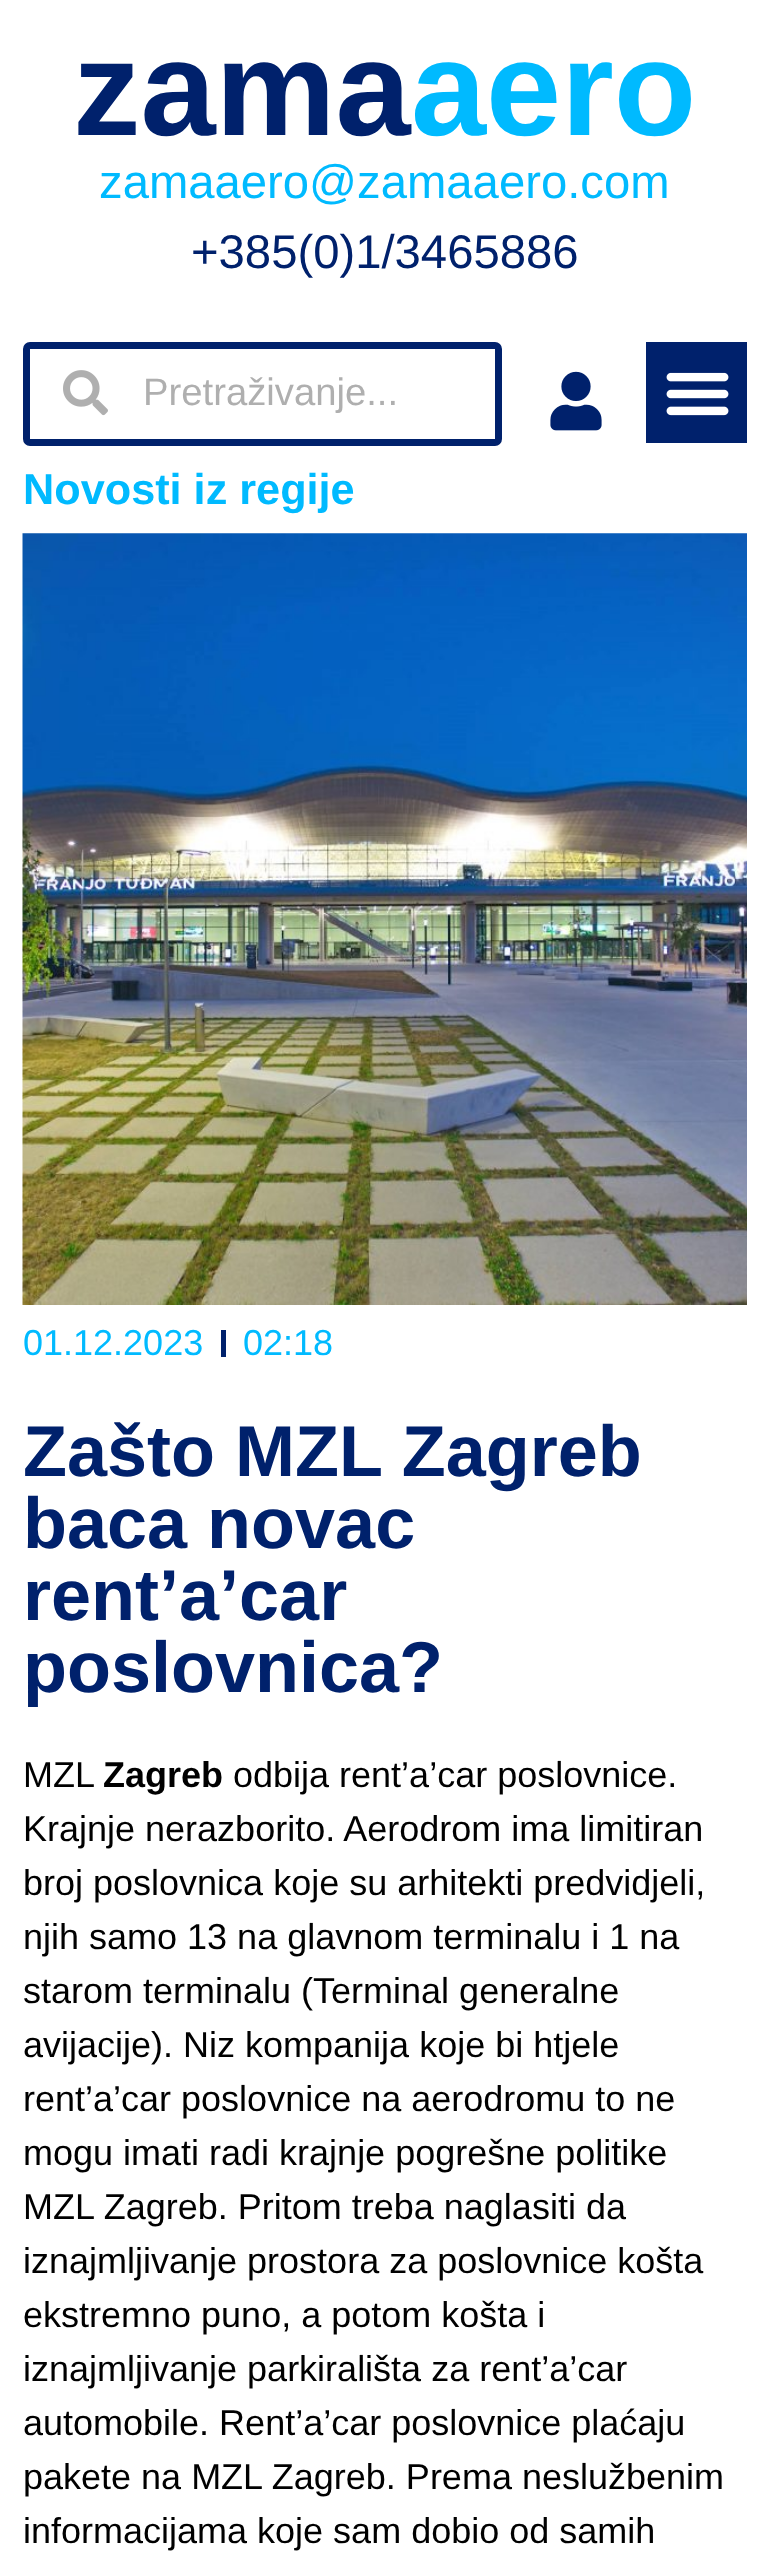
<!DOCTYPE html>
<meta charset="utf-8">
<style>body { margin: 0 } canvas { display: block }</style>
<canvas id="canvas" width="768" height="2570"></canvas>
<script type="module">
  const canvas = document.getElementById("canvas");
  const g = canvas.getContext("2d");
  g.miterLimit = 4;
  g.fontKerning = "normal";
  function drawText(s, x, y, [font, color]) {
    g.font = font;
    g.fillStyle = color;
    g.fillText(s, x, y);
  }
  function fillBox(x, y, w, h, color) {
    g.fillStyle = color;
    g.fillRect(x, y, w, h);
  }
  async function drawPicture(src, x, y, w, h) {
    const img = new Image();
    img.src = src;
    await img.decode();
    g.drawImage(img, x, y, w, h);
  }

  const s1 = ["bold 135px Liberation Sans", "#00216C"];
  const s2 = ["bold 135px Liberation Sans", "#00BAFF"];
  const s3 = ["47.25px Liberation Sans", "#00BAFF"];
  const s4 = ["47.25px Liberation Sans", "#00216C"];
  const s5 = ["38.25px Liberation Sans", "#AFAFAF"];
  const s6 = ["bold 43.25px Liberation Sans", "#00BAFF"];
  const s7 = ["36px Liberation Sans", "#00BAFF"];
  const s8 = ["bold 72px Liberation Sans", "#00216C"];
  const s9 = ["36px Liberation Sans", "#000000"];
  const s10 = ["bold 36px Liberation Sans", "#000000"];

  fillBox(0, 0, 768, 2570, "#FFFFFF");
  drawText("zama", 73, 135, s1);
  drawText("aero", 411, 135, s2);
  drawText("zamaaero@zamaaero.com", 99, 198, s3);
  drawText("+385(0)1/3465886", 191, 268, s4);
  g.beginPath();
  g.roundRect(26.5, 345.5, 472, 97, 3.5);
  g.strokeStyle = "#00216C";
  g.lineWidth = 7;
  g.stroke();
  await drawPicture("pic1.png", 63, 370, 45, 46);
  drawText("Pretraživanje...", 143, 405, s5);
  await drawPicture("pic2.png", 550, 371, 52, 60);
  fillBox(646, 342, 101, 101, "#00216C");
  await drawPicture("pic3.png", 666, 372, 63, 44);
  drawText("Novosti iz regije", 23, 504, s6);
  await drawPicture("pic4.png", 22, 533, 725, 772);
  drawText("01.12.2023", 23, 1355, s7);
  fillBox(221, 1330, 5, 27, "#00216C");
  drawText("02:18", 243, 1355, s7);
  drawText("Zašto MZL Zagreb", 23, 1476, s8);
  drawText("baca novac", 23, 1548, s8);
  drawText("rent’a’car", 23, 1620, s8);
  drawText("poslovnica?", 23, 1692, s8);
  drawText("MZL", 23, 1787, s9);
  drawText("Zagreb", 103, 1787, s10);
  drawText("odbija rent’a’car poslovnice.", 233, 1787, s9);
  drawText("Krajnje nerazborito. Aerodrom ima limitiran", 23, 1841, s9);
  drawText("broj poslovnica koje su arhitekti predvidjeli,", 23, 1895, s9);
  drawText("njih samo 13 na glavnom terminalu i 1 na", 23, 1949, s9);
  drawText("starom terminalu (Terminal generalne", 23, 2003, s9);
  drawText("avijacije). Niz kompanija koje bi htjele", 23, 2057, s9);
  drawText("rent’a’car poslovnice na aerodromu to ne", 23, 2111, s9);
  drawText("mogu imati radi krajnje pogrešne politike", 23, 2165, s9);
  drawText("MZL Zagreb. Pritom treba naglasiti da", 23, 2219, s9);
  drawText("iznajmljivanje prostora za poslovnice košta", 23, 2273, s9);
  drawText("ekstremno puno, a potom košta i", 23, 2327, s9);
  drawText("iznajmljivanje parkirališta za rent’a’car", 23, 2381, s9);
  drawText("automobile. Rent’a’car poslovnice plaćaju", 23, 2435, s9);
  drawText("pakete na MZL Zagreb. Prema neslužbenim", 23, 2489, s9);
  drawText("informacijama koje sam dobio od samih", 23, 2543, s9);
</script>
